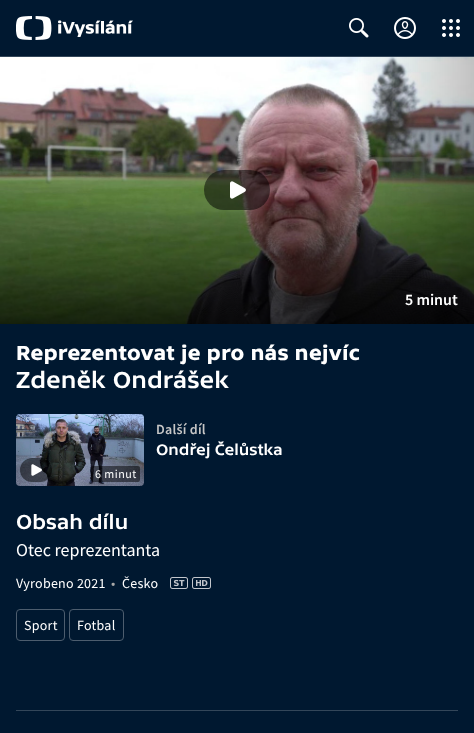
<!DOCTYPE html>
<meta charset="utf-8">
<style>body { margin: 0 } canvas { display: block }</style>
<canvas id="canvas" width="474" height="733"></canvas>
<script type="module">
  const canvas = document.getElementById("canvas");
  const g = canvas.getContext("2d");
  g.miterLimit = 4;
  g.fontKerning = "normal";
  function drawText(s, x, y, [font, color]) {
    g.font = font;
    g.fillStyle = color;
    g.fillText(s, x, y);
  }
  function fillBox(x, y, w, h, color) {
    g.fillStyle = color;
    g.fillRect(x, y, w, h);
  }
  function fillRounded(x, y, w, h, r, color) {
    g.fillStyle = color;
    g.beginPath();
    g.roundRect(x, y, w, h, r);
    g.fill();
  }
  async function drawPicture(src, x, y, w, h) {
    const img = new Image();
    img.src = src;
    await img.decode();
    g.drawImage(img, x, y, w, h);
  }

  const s1 = ["600 16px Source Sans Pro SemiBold", "#FFFFFF"];
  const s2 = ["bold 21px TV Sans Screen", "#FFFFFF"];
  const s3 = ["24px TV Sans Screen", "#FFFFFF"];
  const s4 = ["600 14px Source Sans Pro SemiBold", "#C6C6C6"];
  const s5 = ["16px TV Sans Screen", "#FFFFFF"];
  const s6 = ["12px Source Sans Pro", "#FFFFFF"];
  const s7 = ["21px TV Sans Screen", "#FFFFFF"];
  const s8 = ["18px Source Sans Pro", "#FFFFFF"];
  const s9 = ["14px Source Sans Pro", "#FFFFFF"];
  const s10 = ["14px Source Sans Pro", "#A8A8A8"];

  fillBox(0, 0, 474, 733, "#001830");
  fillBox(0, 56, 474, 1, "#334659");
  await drawPicture("pic1.png", 16, 16, 117, 24);
  await drawPicture("pic2.png", 349, 18, 20, 20);
  await drawPicture("pic3.png", 394, 17, 22, 22);
  await drawPicture("pic4.png", 442, 19, 18, 18);
  await drawPicture("pic5.png", 0, 57, 474, 267);
  fillRounded(204, 170, 66, 40, 20, "rgba(0, 0, 0, 0.5)");
  await drawPicture("pic6.png", 230, 181, 16, 18);
  drawText("5 minut", 405, 305, s1);
  drawText("Reprezentovat je pro nás nejvíc", 16, 360, s2);
  drawText("Zdeněk Ondrášek", 16, 388, s3);
  g.letterSpacing = "0.25px";
  drawText("Další díl", 156, 434, s4);
  g.letterSpacing = "0px";
  drawText("Ondřej Čelůstka", 156, 455, s5);
  await drawPicture("pic7.png", 16, 414, 128, 72);
  fillRounded(20, 458, 32, 24, 12, "rgba(0, 0, 0, 0.5)");
  await drawPicture("pic8.png", 31, 464, 11, 12);
  fillRounded(91, 466, 49, 16, 2, "rgba(0, 0, 0, 0.5)");
  g.letterSpacing = "0.5px";
  drawText("6 minut", 95, 478, s6);
  g.letterSpacing = "0px";
  drawText("Obsah dílu", 16, 529, s7);
  drawText("Otec reprezentanta", 16, 556, s8);
  g.letterSpacing = "0.25px";
  drawText("Vyrobeno 2021", 16, 588, s9);
  drawText("•", 111, 588, s10);
  drawText("Česko", 122, 588, s9);
  await drawPicture("pic9.png", 170, 577, 18, 12);
  await drawPicture("pic10.png", 192, 577, 19, 12);
  g.beginPath();
  g.roundRect(16.5, 609.5, 48, 31, 3.5);
  g.strokeStyle = "#4D5D6E";
  g.stroke();
  drawText("Sport", 24, 630, s9);
  g.beginPath();
  g.roundRect(69.5, 609.5, 54, 31, 3.5);
  g.stroke();
  drawText("Fotbal", 77, 630, s9);
  fillBox(16, 710, 442, 1, "#334659");
</script>
